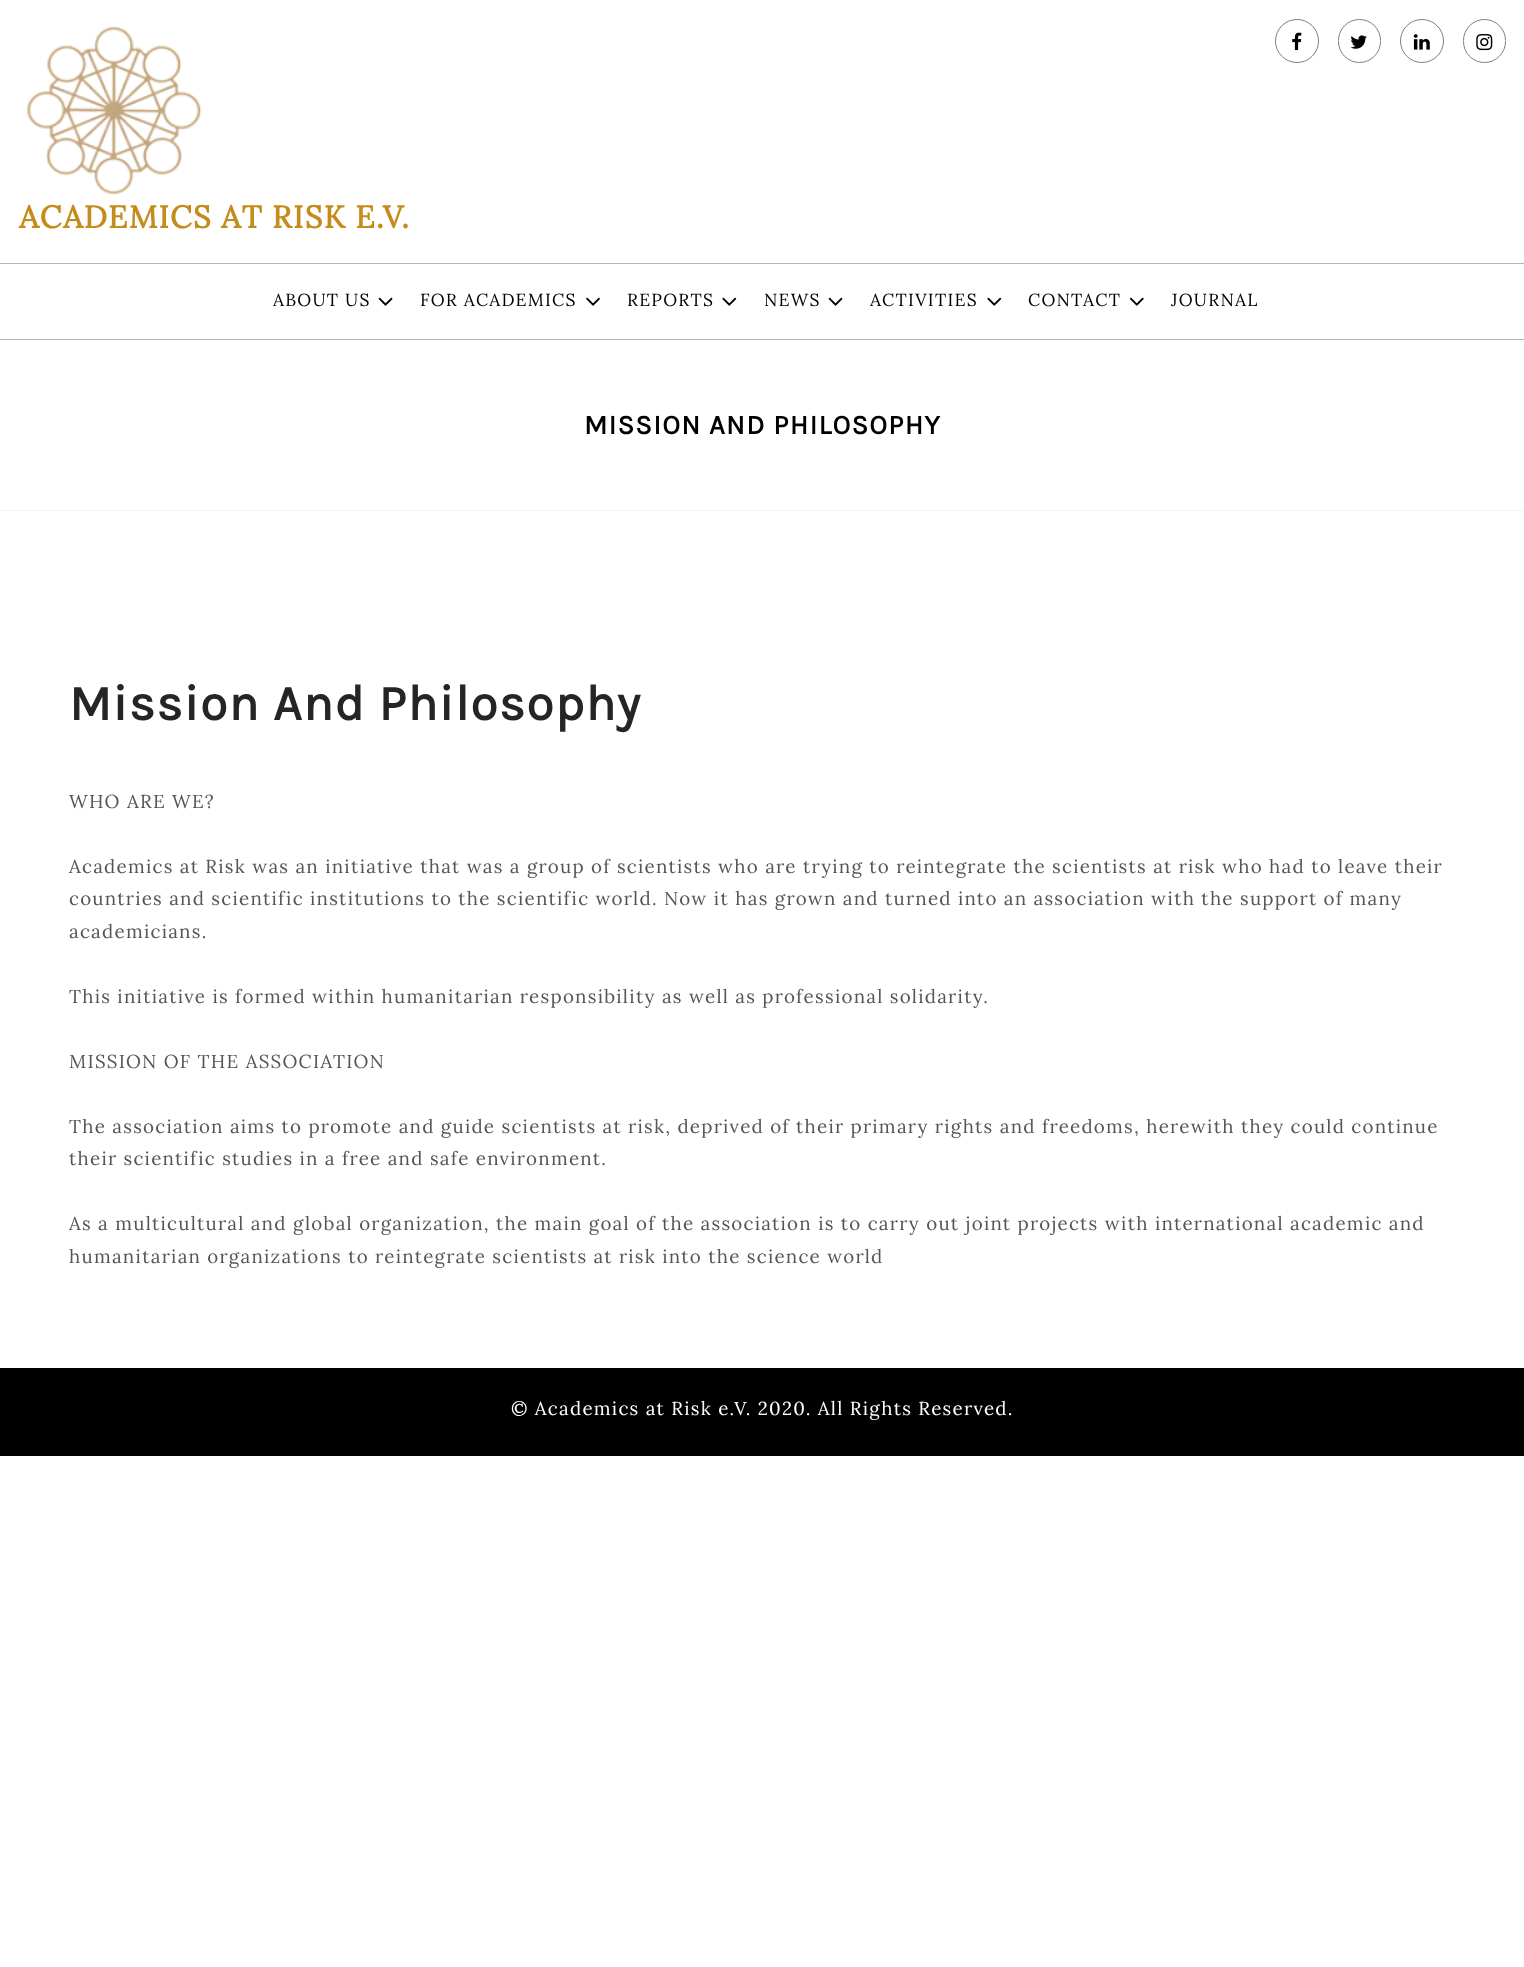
<!DOCTYPE html>
<meta charset="utf-8">
<style>body { margin: 0 } canvas { display: block }</style>
<canvas id="canvas" width="1524" height="1967"></canvas>
<script type="module">
  const canvas = document.getElementById("canvas");
  const g = canvas.getContext("2d");
  g.miterLimit = 4;
  g.fontKerning = "normal";
  function drawText(s, x, y, [font, color]) {
    g.font = font;
    g.fillStyle = color;
    g.fillText(s, x, y);
  }
  function fillBox(x, y, w, h, color) {
    g.fillStyle = color;
    g.fillRect(x, y, w, h);
  }
  async function drawPicture(src, x, y, w, h) {
    const img = new Image();
    img.src = src;
    await img.decode();
    g.drawImage(img, x, y, w, h);
  }

  const s1 = ["bold 31.25px Lora", "#C48C1B"];
  const s2 = ["17.5px Lora", "#000000"];
  const s3 = ["bold 27.5px Karla", "#000000"];
  const s4 = ["bold 50px Karla", "#252525"];
  const s5 = ["18.75px Lora", "#555555"];
  const s6 = ["18.75px Lora", "#FFFFFF"];

  fillBox(0, 0, 1524, 1967, "#FFFFFF");
  g.beginPath();
  g.arc(1297, 41, 21.5, 0, Math.PI * 2);
  g.strokeStyle = "#847E7E";
  g.stroke();
  await drawPicture("pic1.png", 1292, 32, 10, 19);
  g.beginPath();
  g.roundRect(1338.5, 19.5, 42, 43, 21);
  g.stroke();
  await drawPicture("pic2.png", 1350, 35, 17, 14);
  g.beginPath();
  g.arc(1422, 41, 21.5, 0, Math.PI * 2);
  g.stroke();
  await drawPicture("pic3.png", 1413, 34, 17, 16);
  g.beginPath();
  g.roundRect(1463.5, 19.5, 42, 43, 21);
  g.stroke();
  await drawPicture("pic4.png", 1476, 34, 17, 17);
  await drawPicture("pic5.png", 26, 26, 176, 169);
  g.letterSpacing = "1.25px";
  g.wordSpacing = "-0.5px";
  drawText("ACADEMICS AT RISK E.V.", 19, 228, s1);
  fillBox(0, 263, 1524, 1, "#B7B7B7");
  fillBox(0, 339, 1524, 1, "#B7B7B7");
  g.wordSpacing = "0px";
  drawText("ABOUT US", 273, 306, s2);
  await drawPicture("pic6.png", 378, 297, 15, 9);
  drawText("FOR ACADEMICS", 420, 306, s2);
  await drawPicture("pic7.png", 586, 297, 14, 9);
  drawText("REPORTS", 627, 306, s2);
  await drawPicture("pic8.png", 722, 297, 15, 9);
  drawText("NEWS", 764, 306, s2);
  await drawPicture("pic6.png", 828, 297, 15, 9);
  drawText("ACTIVITIES", 870, 306, s2);
  await drawPicture("pic8.png", 987, 297, 15, 9);
  drawText("CONTACT", 1028, 306, s2);
  await drawPicture("pic9.png", 1129, 297, 15, 9);
  drawText("JOURNAL", 1171, 306, s2);
  fillBox(0, 510, 1524, 1, "#F2F2F2");
  drawText("MISSION AND PHILOSOPHY", 584, 434, s3);
  drawText("Mission And Philosophy", 69, 720, s4);
  drawText("WHO ARE WE?", 69, 808, s5);
  drawText("Academics at Risk was an initiative that was a group of scientists who are trying to reintegrate the scientists at risk who had to leave their", 69, 873, s5);
  drawText("countries and scientific institutions to the scientific world. Now it has grown and turned into an association with the support of many", 69, 905, s5);
  drawText("academicians.", 69, 938, s5);
  drawText("This initiative is formed within humanitarian responsibility as well as professional solidarity.", 69, 1003, s5);
  drawText("MISSION OF THE ASSOCIATION", 69, 1068, s5);
  drawText("The association aims to promote and guide scientists at risk, deprived of their primary rights and freedoms, herewith they could continue", 69, 1133, s5);
  drawText("their scientific studies in a free and safe environment.", 69, 1165, s5);
  drawText("As a multicultural and global organization, the main goal of the association is to carry out joint projects with international academic and", 69, 1230, s5);
  drawText("humanitarian organizations to reintegrate scientists at risk into the science world", 69, 1263, s5);
  fillBox(0, 1368, 1524, 88, "#000000");
  drawText("© Academics at Risk e.V. 2020. All Rights Reserved.", 511, 1415, s6);
</script>
